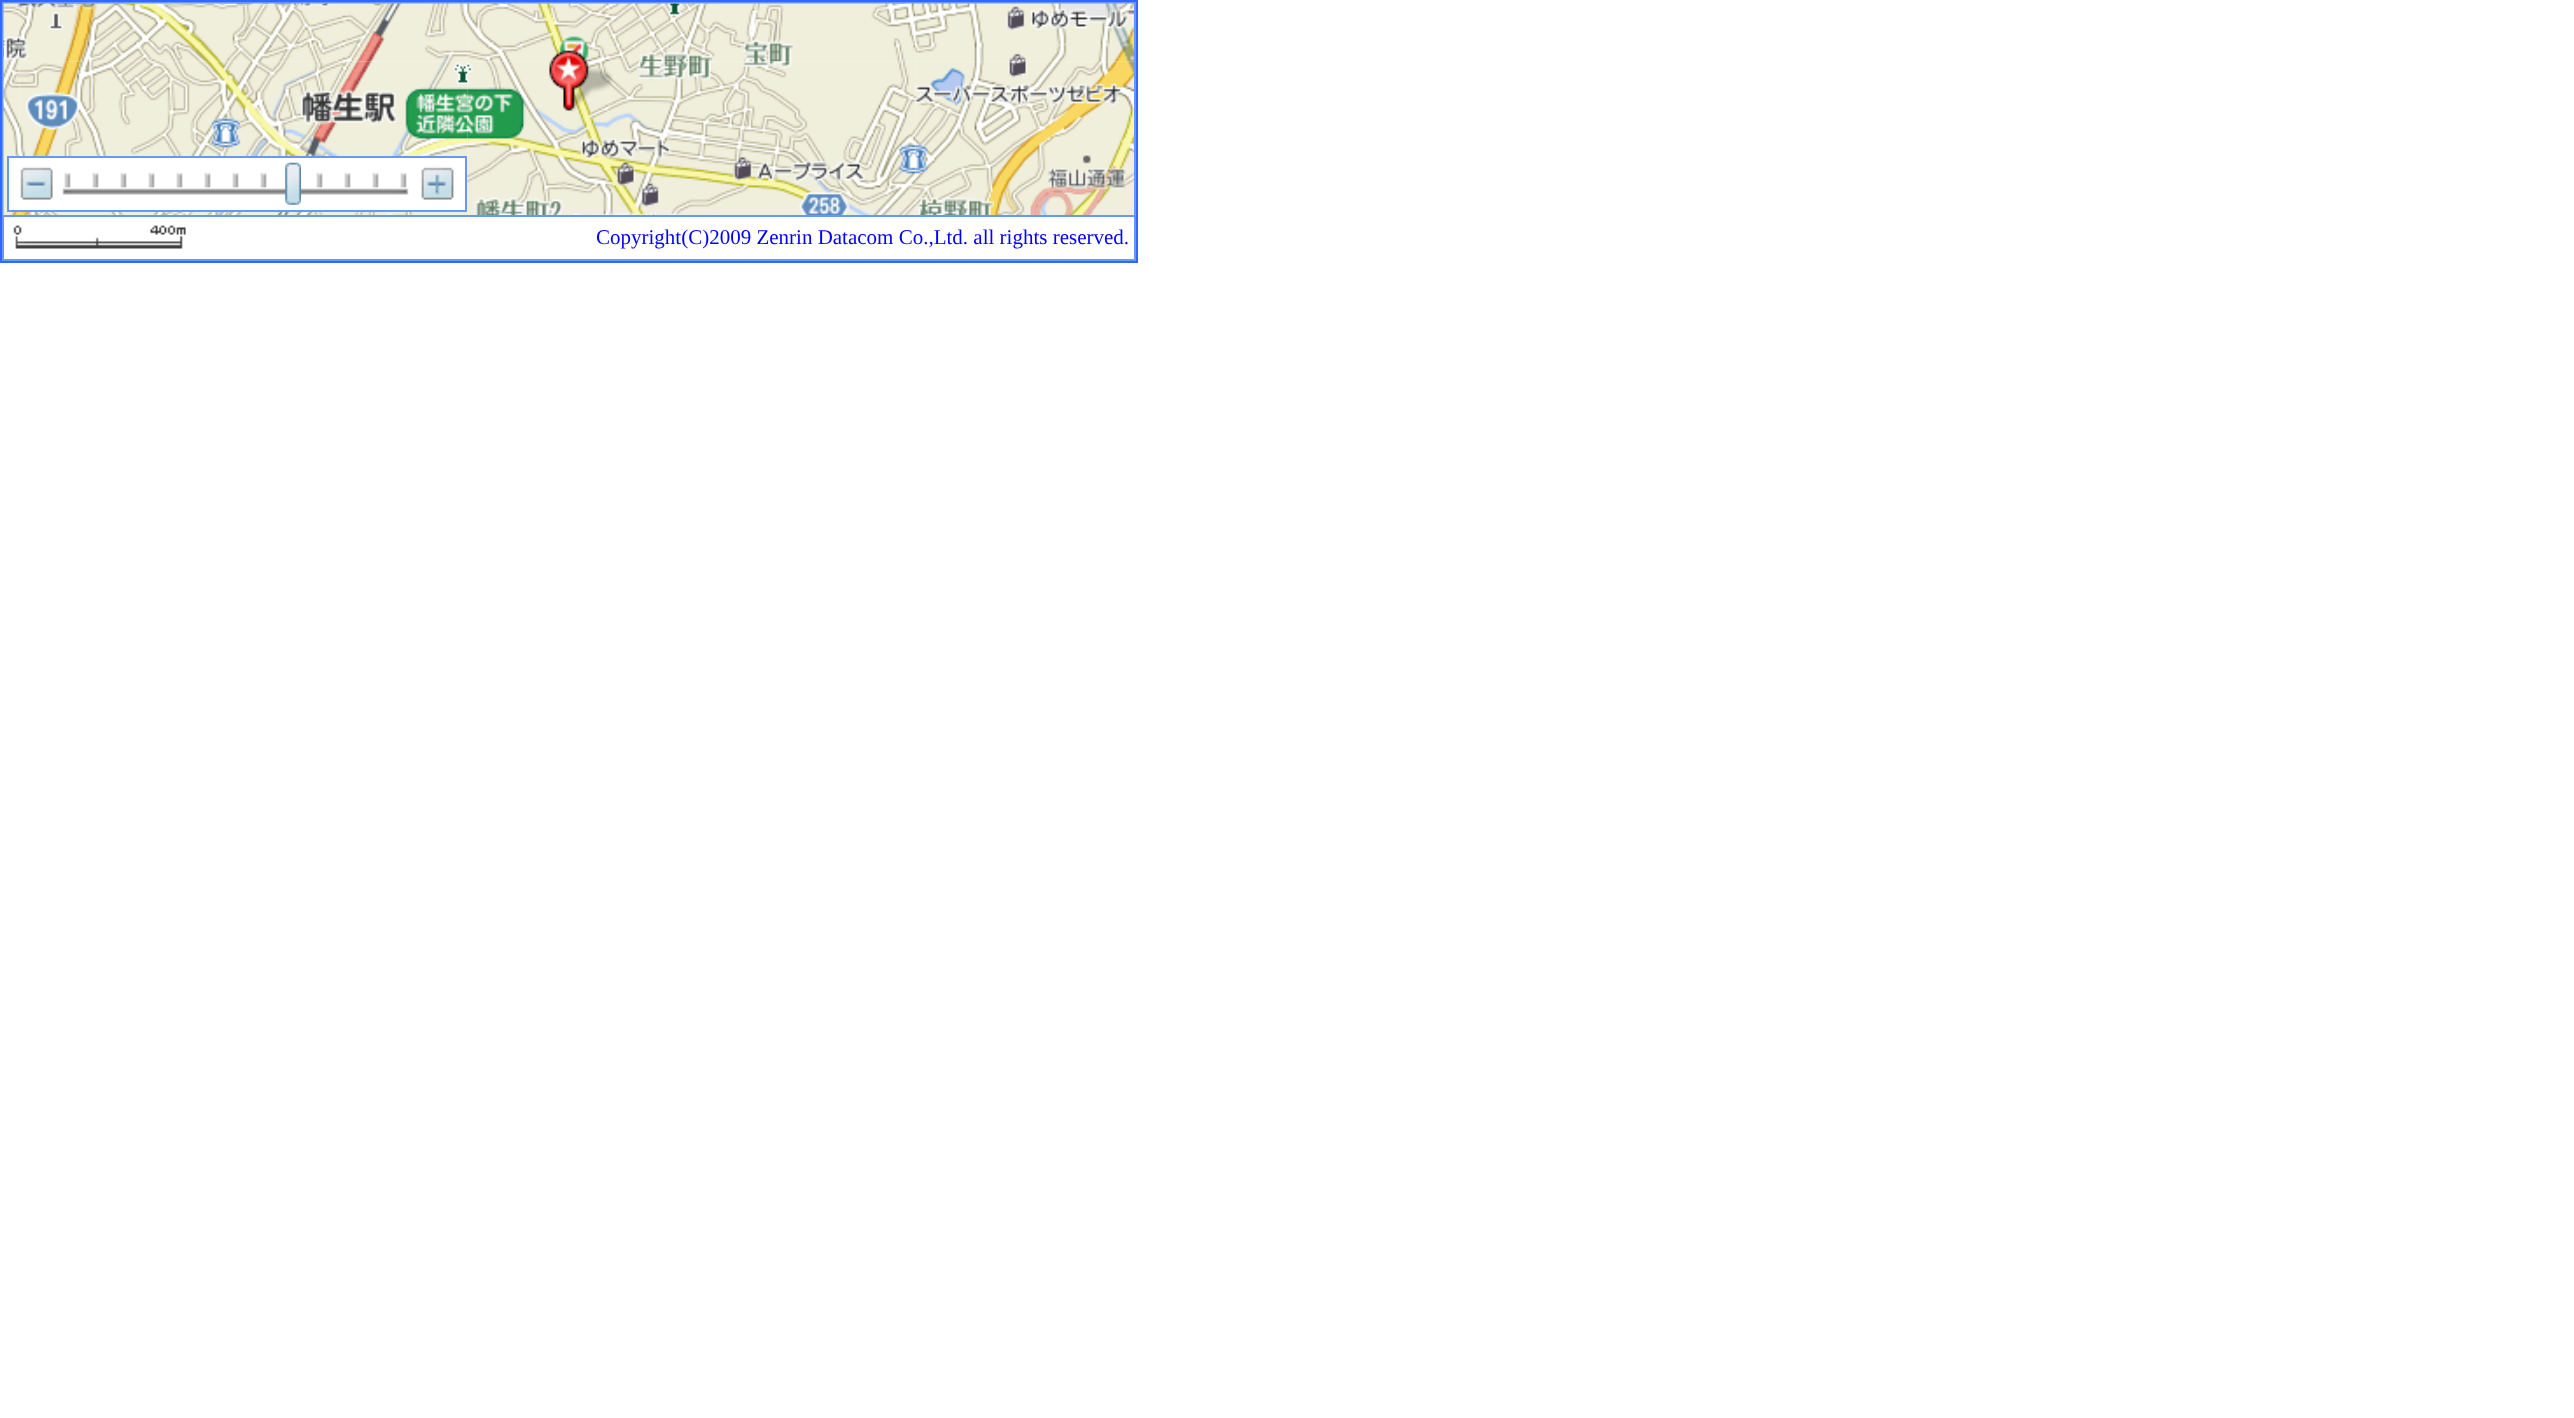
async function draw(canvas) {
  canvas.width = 2574
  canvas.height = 1418
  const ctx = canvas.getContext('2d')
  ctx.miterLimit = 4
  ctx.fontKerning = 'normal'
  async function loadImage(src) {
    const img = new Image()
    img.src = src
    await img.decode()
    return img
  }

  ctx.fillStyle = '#fff'
  ctx.fillRect(0, 0, 2574, 1418)
  ctx.strokeStyle = '#36f'
  ctx.lineWidth = 2
  ctx.strokeRect(1, 1, 1136, 261)
  ctx.strokeStyle = '#69f'
  ctx.strokeRect(3, 3, 1132, 213)
  ctx.drawImage(await loadImage('image7.png'), 915, 61, 219, 154)
  ctx.drawImage(await loadImage('image3.png'), 915, 3, 219, 59)
  ctx.drawImage(await loadImage('image6.png'), 467, 61, 449, 154)
  ctx.drawImage(await loadImage('image2.png'), 467, 3, 449, 59)
  ctx.drawImage(await loadImage('image5.png'), 19, 61, 449, 154)
  ctx.drawImage(await loadImage('image1.png'), 19, 3, 449, 59)
  ctx.drawImage(await loadImage('image4.png'), 3, 61, 17, 154)
  ctx.drawImage(await loadImage('image0.png'), 3, 3, 17, 59)
  ctx.drawImage(await loadImage('image8.png'), 549, 50, 64, 62)
  ctx.beginPath()
  ctx.rect(8, 157, 458, 54)
  ctx.fill()
  ctx.stroke()
  ctx.drawImage(await loadImage('image9.png'), 20, 167, 33, 33)
  ctx.drawImage(await loadImage('image12.png'), 62, 173, 347, 22)
  ctx.drawImage(await loadImage('image10.png'), 285, 162, 16, 43)
  ctx.drawImage(await loadImage('image11.png'), 421, 167, 33, 33)
  ctx.strokeRect(3, 216, 1132, 44)
  ctx.drawImage(await loadImage('image13.png'), 13, 225, 173, 24)
  ctx.font = '21px Liberation Serif'
  ctx.fillStyle = '#00f'
  ctx.fillText('Copyright(C)2009 Zenrin Datacom Co.,Ltd. all rights reserved.', 596, 244)
}

draw(document.querySelector('canvas'))
